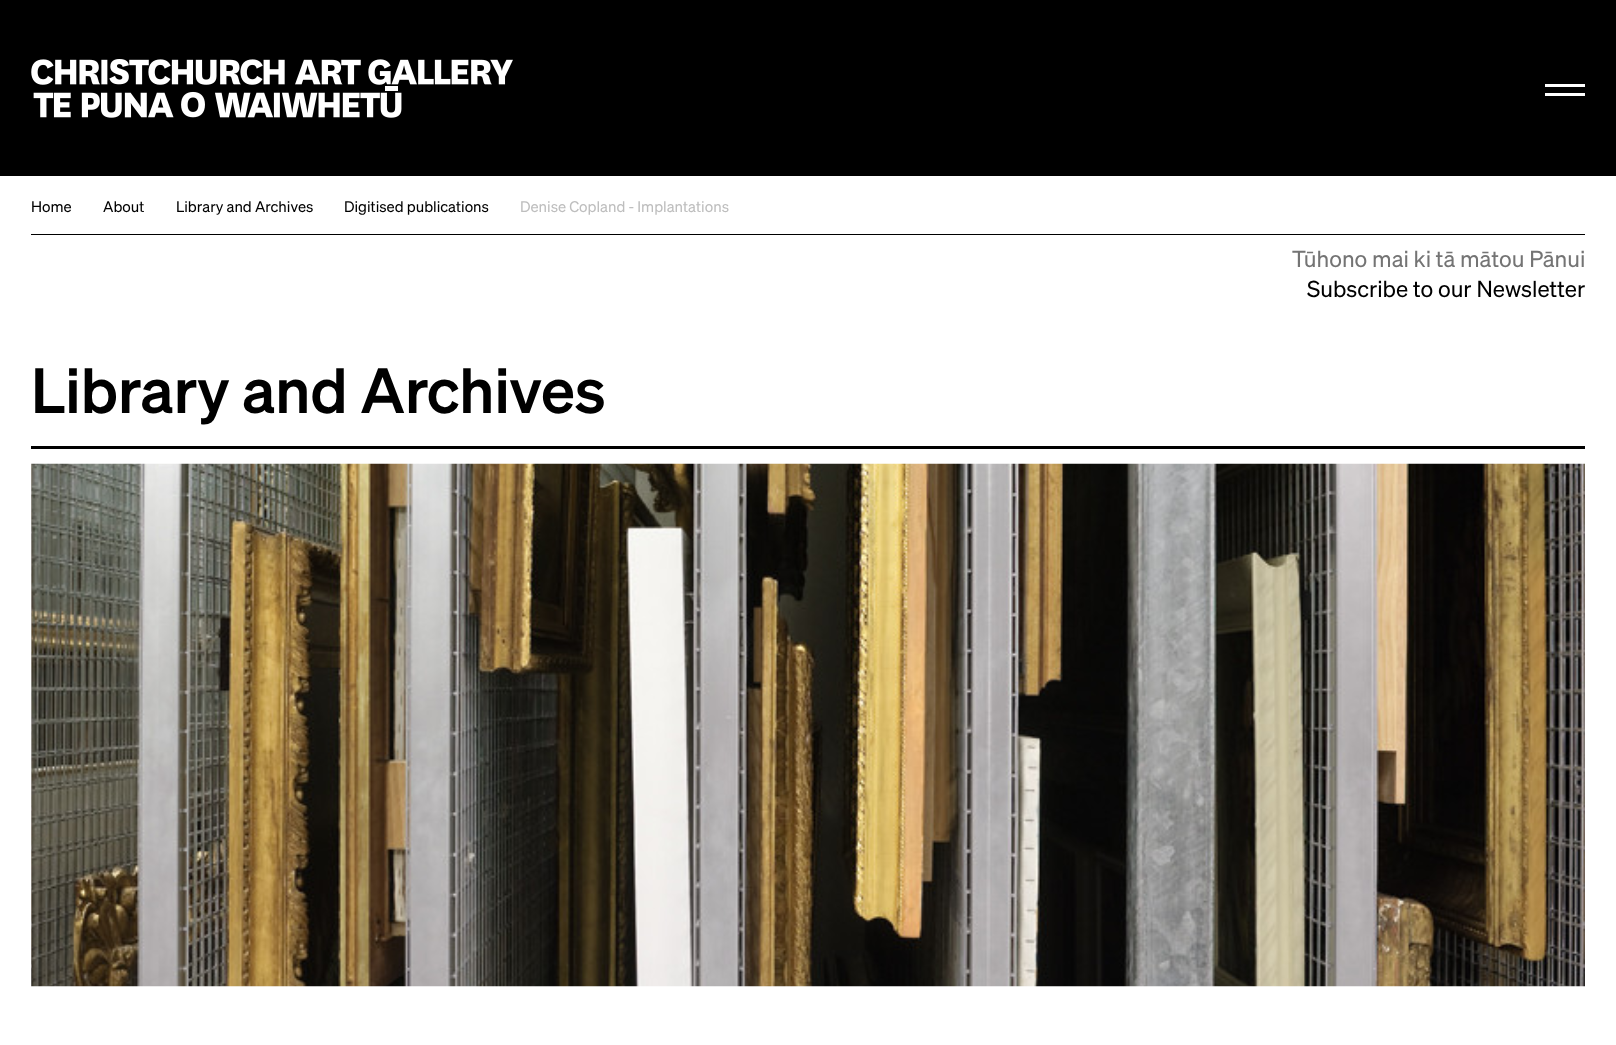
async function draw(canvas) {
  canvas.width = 1616
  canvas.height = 1045
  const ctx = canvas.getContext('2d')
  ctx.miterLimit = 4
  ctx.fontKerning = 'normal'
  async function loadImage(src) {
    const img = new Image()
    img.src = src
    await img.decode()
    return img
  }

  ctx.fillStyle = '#fff'
  ctx.fillRect(0, 0, 1616, 1045)
  ctx.fillStyle = '#000'
  ctx.fillRect(0, 0, 1616, 176)
  ctx.drawImage(await loadImage('image0.png'), 31, 59, 482, 59)
  ctx.fillStyle = '#fff'
  ctx.fillRect(1545, 93, 40, 3)
  ctx.fillRect(1545, 84, 40, 3)
  ctx.fillStyle = '#000'
  ctx.fillRect(31, 234, 1554, 1)
  ctx.font = 'italic 15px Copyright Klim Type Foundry'
  ctx.fillText('Home', 31, 212)
  ctx.fillText('About', 103, 212)
  ctx.fillText('Library and Archives', 176, 212)
  ctx.fillText('Digitised publications', 344, 212)
  ctx.fillStyle = '#bebebe'
  ctx.fillText('Denise Copland - Implantations', 520, 212)
  ctx.font = 'italic 22.5px Copyright Klim Type Foundry'
  ctx.fillStyle = '#747474'
  ctx.fillText('Tūhono mai ki tā mātou Pānui', 1292, 267)
  ctx.fillStyle = '#000'
  ctx.fillText('Subscribe to our Newsletter', 1307, 297)
  ctx.fillRect(31, 446, 1554, 3)
  ctx.font = 'italic 500 62.5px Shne'
  ctx.fillText('Library and Archives', 31, 413)
  ctx.drawImage(await loadImage('image1.png'), 31, 463, 1554, 524)
}

draw(document.querySelector('canvas'))
